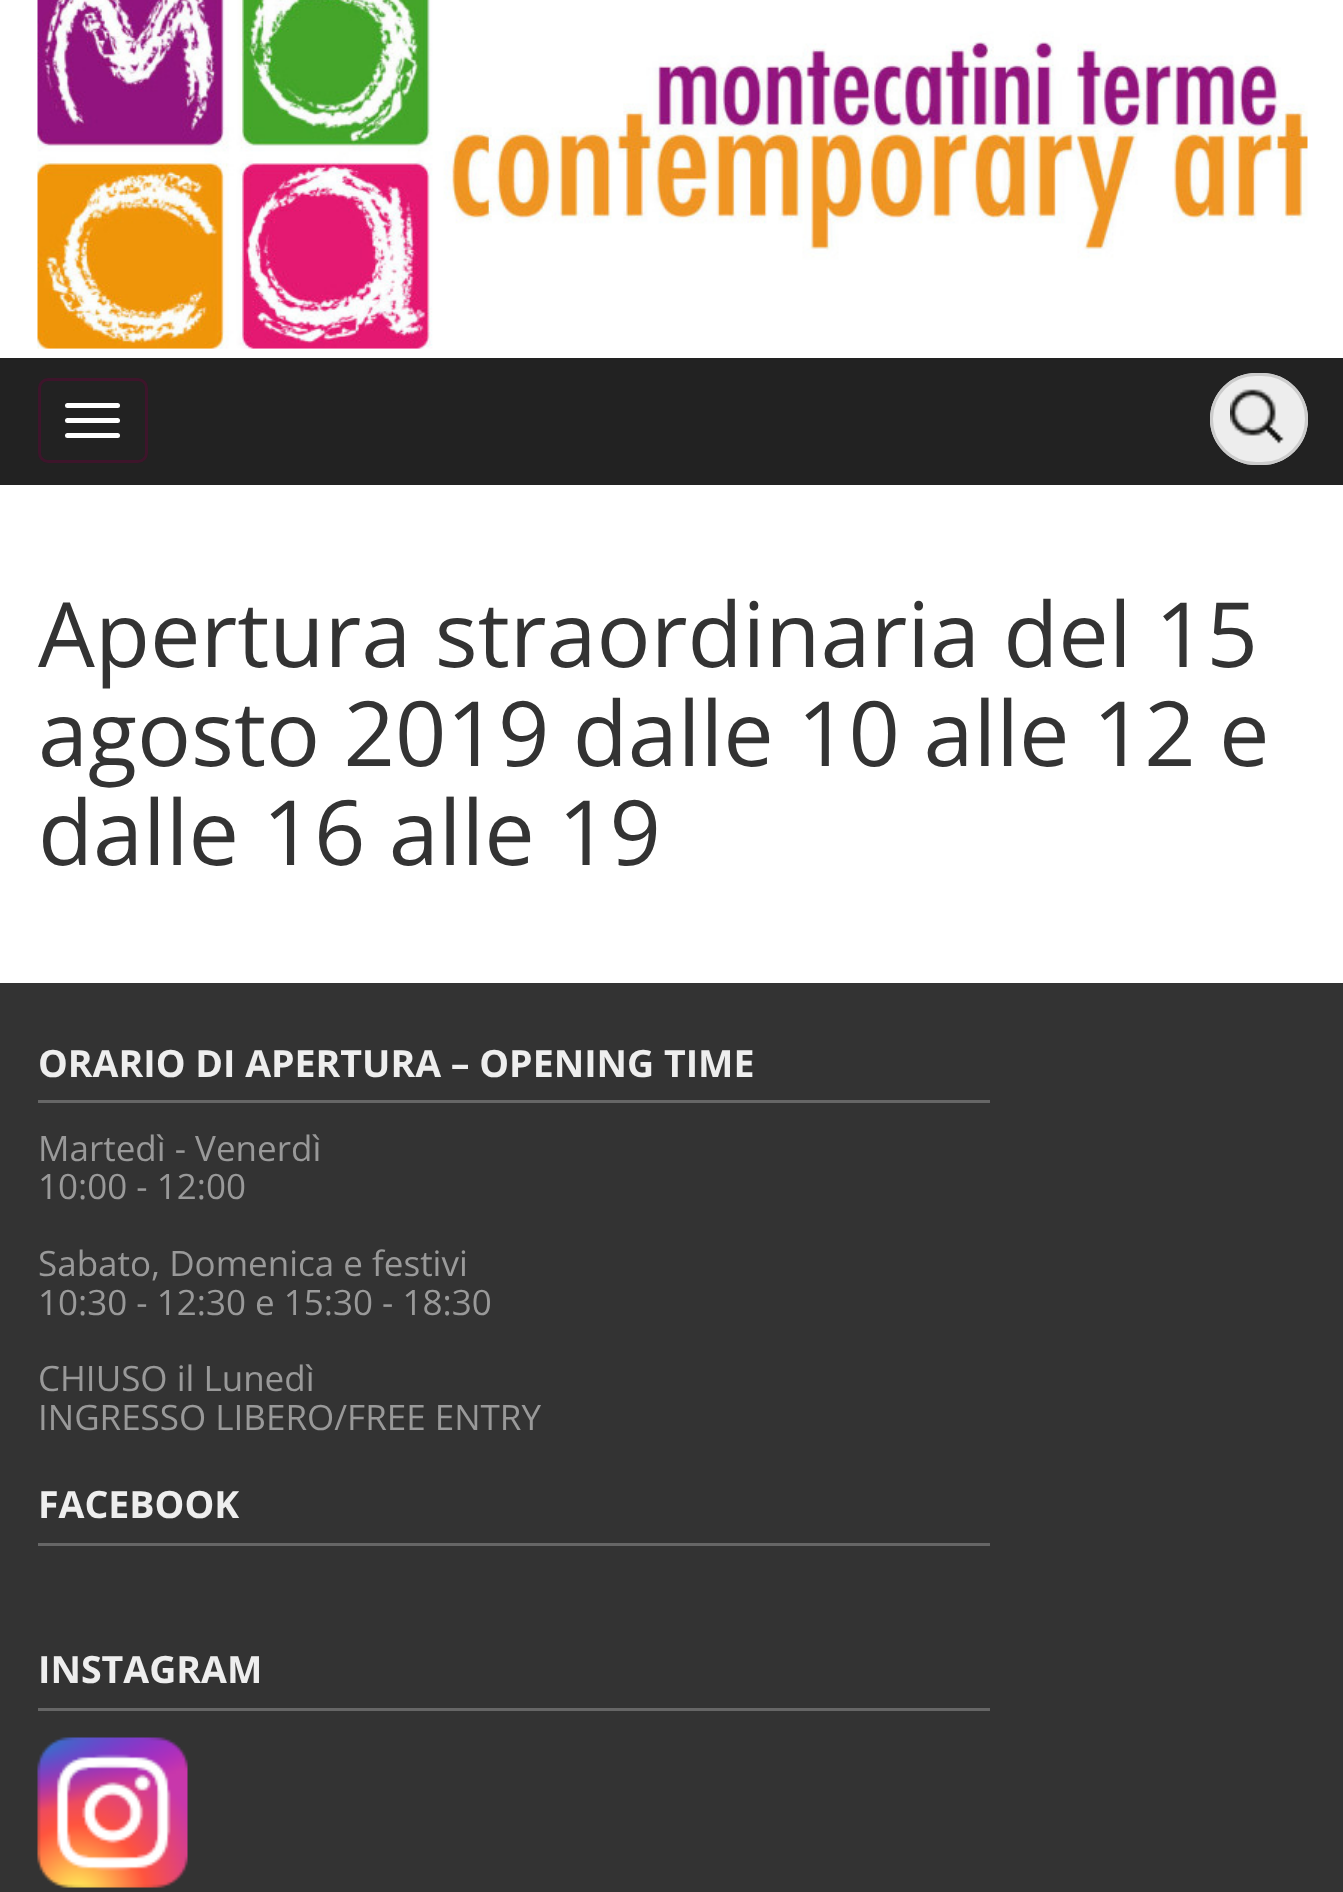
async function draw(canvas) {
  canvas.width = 1343
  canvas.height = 1892
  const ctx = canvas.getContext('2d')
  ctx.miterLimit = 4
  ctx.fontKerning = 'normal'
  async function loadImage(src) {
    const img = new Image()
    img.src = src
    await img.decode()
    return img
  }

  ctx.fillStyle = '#fff'
  ctx.fillRect(0, 0, 1343, 1892)
  ctx.drawImage(await loadImage('image0.png'), 37, 0, 1271, 349)
  ctx.fillStyle = '#222'
  ctx.fillRect(0, 358, 1343, 127)
  ctx.beginPath()
  ctx.roundRect(39.5, 379.5, 107, 82, 8.5)
  ctx.strokeStyle = '#3e152b'
  ctx.lineWidth = 3
  ctx.stroke()
  ctx.fillStyle = '#fff'
  ctx.beginPath()
  ctx.roundRect(65, 403, 55, 5, 2.5)
  ctx.fill()
  ctx.beginPath()
  ctx.roundRect(65, 418, 55, 5, 2.5)
  ctx.fill()
  ctx.beginPath()
  ctx.roundRect(65, 433, 55, 5, 2.5)
  ctx.fill()
  ctx.fillStyle = '#ededed'
  ctx.beginPath()
  ctx.roundRect(1210, 373, 98, 92, 46)
  ctx.fill()
  ctx.drawImage(await loadImage('image1.png'), 1230, 389, 54, 55)
  ctx.beginPath()
  ctx.roundRect(1211.5, 374.5, 95, 89, 44.5)
  ctx.strokeStyle = '#ccc'
  ctx.stroke()
  ctx.font = '90px Open Sans'
  ctx.fillStyle = '#333'
  ctx.fillText('Apertura straordinaria del 15', 38, 667)
  ctx.fillText('agosto 2019 dalle 10 alle 12 e', 38, 766)
  ctx.fillText('dalle 16 alle 19', 38, 865)
  ctx.fillRect(0, 983, 1343, 909)
  ctx.font = 'bold 37.5px Open Sans'
  ctx.fillStyle = '#eee'
  ctx.fillText('ORARIO DI APERTURA – OPENING TIME', 38, 1077)
  ctx.fillStyle = '#666'
  ctx.fillRect(38, 1100, 952, 3)
  ctx.font = '35px Open Sans'
  ctx.fillStyle = '#999'
  ctx.fillText('Martedì - Venerdì', 38, 1161)
  ctx.fillText('10:00 - 12:00', 38, 1199)
  ctx.fillText('Sabato, Domenica e festivi', 38, 1276)
  ctx.fillText('10:30 - 12:30 e 15:30 - 18:30', 38, 1315)
  ctx.fillText('CHIUSO il Lunedì', 38, 1391)
  ctx.fillText('INGRESSO LIBERO/FREE ENTRY', 38, 1430)
  ctx.font = 'bold 37.5px Open Sans'
  ctx.fillStyle = '#eee'
  ctx.fillText('FACEBOOK', 38, 1518)
  ctx.fillStyle = '#666'
  ctx.fillRect(38, 1543, 952, 3)
  ctx.fillStyle = '#eee'
  ctx.fillText('INSTAGRAM', 38, 1683)
  ctx.fillStyle = '#666'
  ctx.fillRect(38, 1708, 952, 3)
  ctx.drawImage(await loadImage('image2.png'), 37, 1737, 151, 151)
}

draw(document.querySelector('canvas'))
